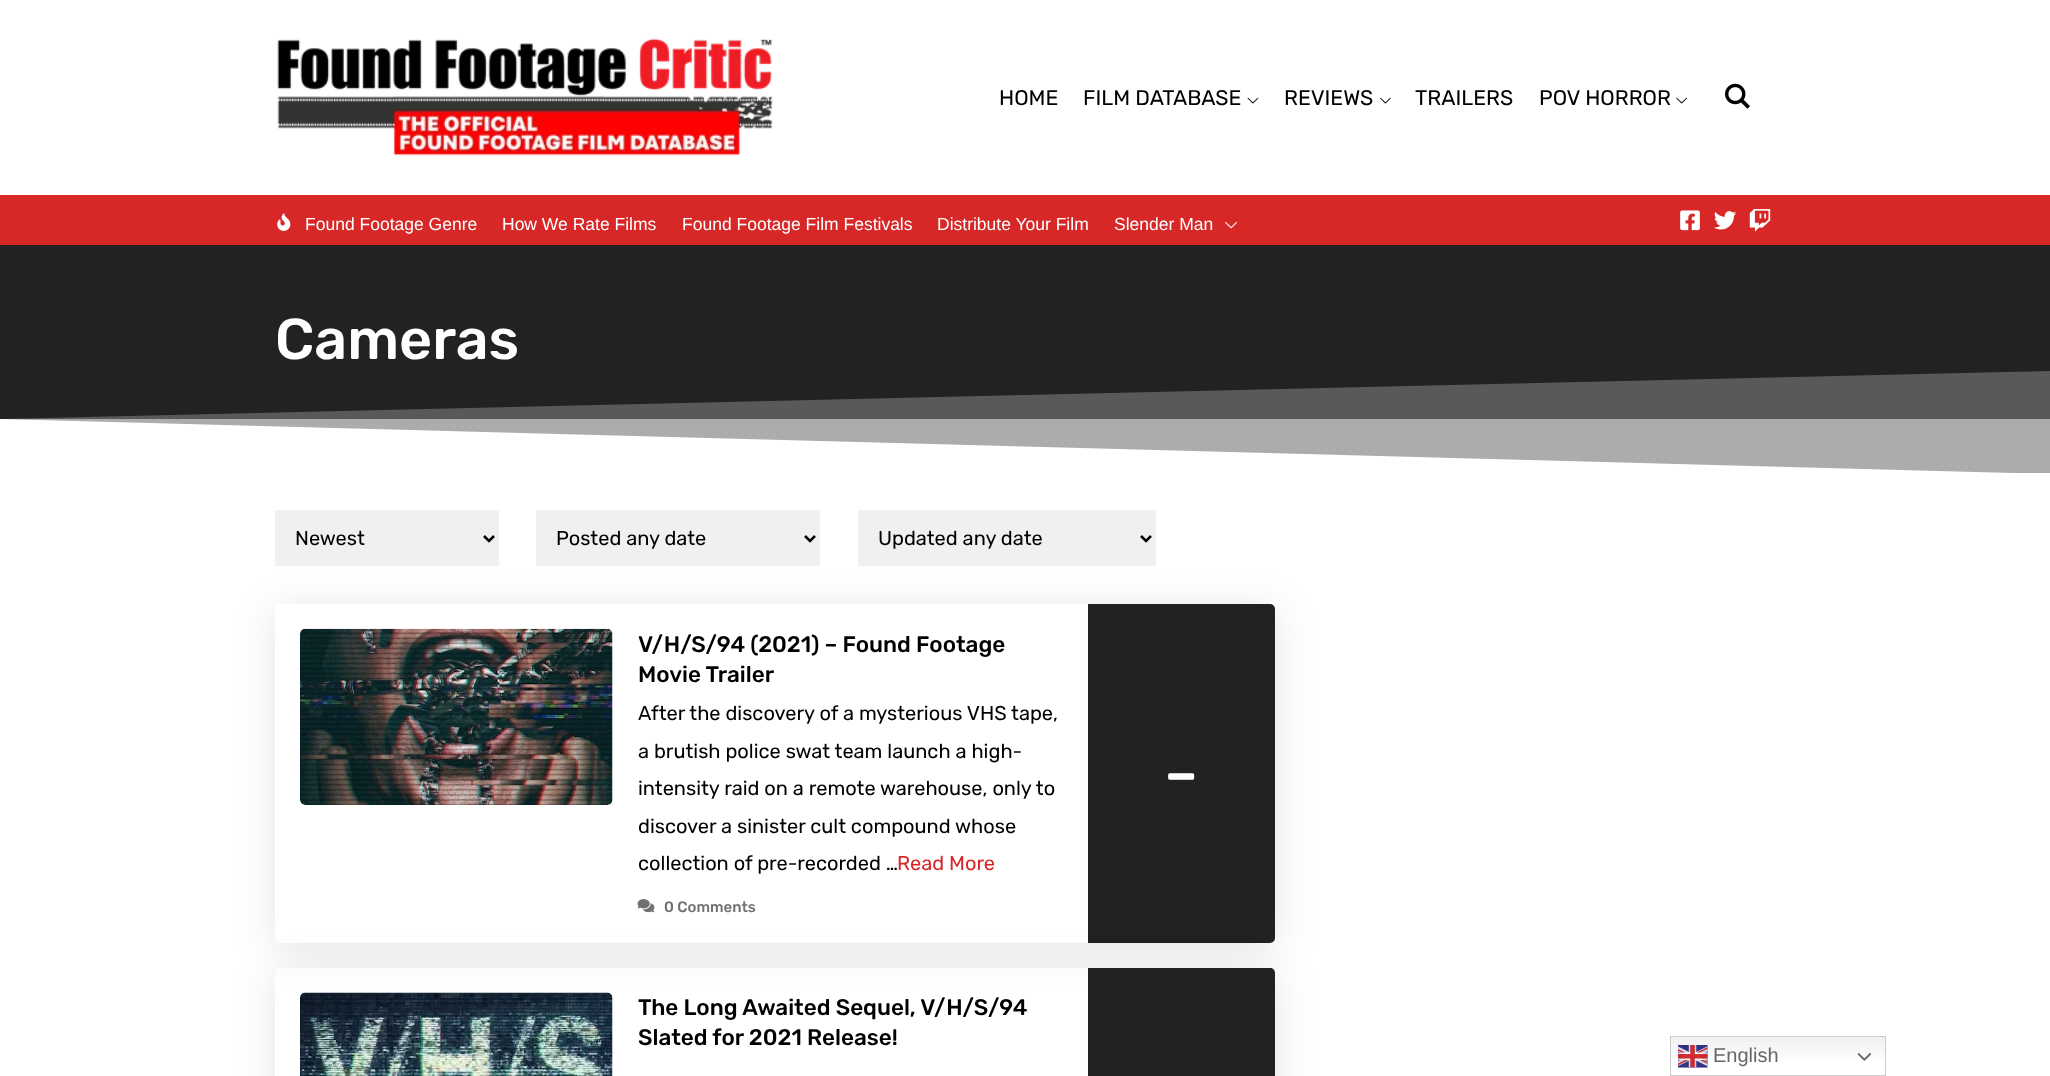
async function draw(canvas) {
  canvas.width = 2050
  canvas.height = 1076
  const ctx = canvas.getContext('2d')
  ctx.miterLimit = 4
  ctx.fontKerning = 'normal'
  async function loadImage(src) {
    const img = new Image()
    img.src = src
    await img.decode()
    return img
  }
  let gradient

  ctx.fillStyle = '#fff'
  ctx.fillRect(0, 0, 2050, 1076)
  ctx.drawImage(await loadImage('image0.png'), 277, 38, 496, 118)
  ctx.font = '21.25px Rubik'
  ctx.fillStyle = '#000'
  ctx.fillText('HOME', 999, 105)
  ctx.fillText('FILM DATABASE', 1083, 105)
  ctx.drawImage(await loadImage('image1.png'), 1247, 97, 12, 7)
  ctx.fillText('REVIEWS', 1284, 105)
  ctx.drawImage(await loadImage('image2.png'), 1380, 97, 11, 7)
  ctx.fillText('TRAILERS', 1415, 105)
  ctx.fillText('POV HORROR', 1539, 105)
  ctx.drawImage(await loadImage('image3.png'), 1676, 97, 11, 7)
  ctx.drawImage(await loadImage('image4.png'), 1725, 83, 25, 26)
  ctx.fillStyle = '#d72727'
  ctx.fillRect(0, 195, 2050, 50)
  ctx.drawImage(await loadImage('image5.png'), 277, 213, 14, 18)
  ctx.font = '17.5px Liberation Sans'
  ctx.fillStyle = '#fff'
  ctx.fillText('Found Footage Genre', 305, 230)
  ctx.fillText('How We Rate Films', 502, 230)
  ctx.fillText('Found Footage Film Festivals', 682, 230)
  ctx.fillText('Distribute Your Film', 937, 230)
  ctx.fillText('Slender Man', 1114, 230)
  ctx.drawImage(await loadImage('image6.png'), 1225, 221, 13, 8)
  ctx.drawImage(await loadImage('image7.png'), 1680, 210, 20, 21)
  ctx.drawImage(await loadImage('image8.png'), 1714, 211, 23, 19)
  ctx.drawImage(await loadImage('image9.png'), 1749, 209, 22, 23)
  ctx.fillStyle = '#222'
  ctx.fillRect(0, 245, 2050, 174)
  ctx.fillStyle = '#919191'
  ctx.fillRect(1, 419, 2049, 54)
  ctx.font = '500 57.5px Rubik'
  ctx.fillStyle = '#fff'
  ctx.fillText('Cameras', 275, 359)
  ctx.beginPath()
  ctx.moveTo(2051, 474)
  ctx.lineTo(-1, 474)
  ctx.lineTo(-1, 419)
  ctx.closePath()
  ctx.fill()
  ctx.fillStyle = '#ffffff40'
  ctx.beginPath()
  ctx.moveTo(-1, 474)
  ctx.lineTo(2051, 474)
  ctx.lineTo(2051, 371)
  ctx.lineTo(-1, 419)
  ctx.closePath()
  ctx.fill()
  ctx.fillStyle = '#f0f0f0'
  ctx.fillRect(275, 510, 224, 56)
  ctx.beginPath()
  ctx.moveTo(484, 536)
  ctx.lineTo(489, 541)
  ctx.lineTo(494, 536)
  ctx.strokeStyle = '#000'
  ctx.lineWidth = 2.5
  ctx.stroke()
  ctx.font = '20px Rubik'
  ctx.fillStyle = '#000'
  ctx.fillText('Newest', 295, 545)
  ctx.fillStyle = '#f0f0f0'
  ctx.fillRect(536, 510, 284, 56)
  ctx.beginPath()
  ctx.moveTo(805, 536)
  ctx.lineTo(810, 541)
  ctx.lineTo(815, 536)
  ctx.stroke()
  ctx.fillStyle = '#000'
  ctx.fillText('Posted any date', 556, 545)
  ctx.fillStyle = '#f0f0f0'
  ctx.fillRect(858, 510, 298, 56)
  ctx.beginPath()
  ctx.moveTo(1141, 536)
  ctx.lineTo(1146, 541)
  ctx.lineTo(1151, 536)
  ctx.stroke()
  ctx.fillStyle = '#000'
  ctx.fillText('Updated any date', 878, 545)
  ctx.save()
  ctx.beginPath()
  ctx.moveTo(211, 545)
  ctx.lineTo(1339, 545)
  ctx.lineTo(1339, 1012)
  ctx.lineTo(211, 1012)
  ctx.closePath()
  ctx.moveTo(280, 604)
  ctx.lineTo(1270, 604)
  ctx.bezierCurveTo(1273, 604, 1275, 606, 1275, 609)
  ctx.lineTo(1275, 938)
  ctx.bezierCurveTo(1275, 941, 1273, 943, 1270, 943)
  ctx.lineTo(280, 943)
  ctx.bezierCurveTo(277, 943, 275, 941, 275, 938)
  ctx.lineTo(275, 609)
  ctx.bezierCurveTo(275, 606, 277, 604, 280, 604)
  ctx.closePath()
  ctx.clip('evenodd')
  ctx.fillStyle = '#0000001a'
  ctx.filter = 'blur(21px)'
  ctx.beginPath()
  ctx.roundRect(275, 609, 1000, 339, 5)
  ctx.fill()
  ctx.filter = 'none'
  ctx.restore()
  ctx.drawImage(await loadImage('image10.png'), 300, 628, 313, 177)
  ctx.font = '500 22.5px Rubik'
  ctx.fillText('V/H/S/94 (2021) – Found Footage', 638, 652)
  ctx.fillText('Movie Trailer', 638, 682)
  ctx.font = '20px Rubik'
  ctx.fillText('After the discovery of a mysterious VHS tape,', 638, 720)
  ctx.fillText('a brutish police swat team launch a high-', 638, 758)
  ctx.fillText('intensity raid on a remote warehouse, only to', 638, 795)
  ctx.fillText('discover a sinister cult compound whose', 638, 833)
  ctx.fillText('collection of pre-recorded …', 638, 870)
  ctx.fillStyle = '#d72727'
  ctx.fillText('Read More', 897, 870)
  ctx.fillStyle = '#222'
  ctx.beginPath()
  ctx.roundRect(1088, 604, 187, 339, [0, 5, 5, 0])
  ctx.fill()
  ctx.save()
  ctx.beginPath()
  ctx.moveTo(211, 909)
  ctx.lineTo(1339, 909)
  ctx.lineTo(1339, 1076)
  ctx.lineTo(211, 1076)
  ctx.closePath()
  ctx.moveTo(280, 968)
  ctx.lineTo(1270, 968)
  ctx.bezierCurveTo(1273, 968, 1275, 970, 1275, 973)
  ctx.lineTo(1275, 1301)
  ctx.bezierCurveTo(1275, 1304, 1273, 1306, 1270, 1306)
  ctx.lineTo(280, 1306)
  ctx.bezierCurveTo(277, 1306, 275, 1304, 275, 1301)
  ctx.lineTo(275, 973)
  ctx.bezierCurveTo(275, 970, 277, 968, 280, 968)
  ctx.closePath()
  ctx.clip('evenodd')
  ctx.fillStyle = '#0000001a'
  ctx.filter = 'blur(21px)'
  ctx.beginPath()
  ctx.roundRect(275, 973, 1000, 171, 5)
  ctx.fill()
  ctx.filter = 'none'
  ctx.restore()
  ctx.drawImage(await loadImage('image11.png'), 637, 899, 18, 14)
  ctx.font = '500 15px Rubik'
  ctx.fillStyle = '#717171'
  ctx.fillText('0 Comments', 664, 912)
  ctx.font = '75px Rubik'
  ctx.fillStyle = '#fff'
  ctx.fillText('-', 1163, 799)
  ctx.drawImage(await loadImage('image12.png'), 300, 992, 313, 84)
  ctx.font = '500 22.5px Rubik'
  ctx.fillStyle = '#000'
  ctx.fillText('The Long Awaited Sequel, V/H/S/94', 638, 1015)
  ctx.fillText('Slated for 2021 Release!', 638, 1045)
  ctx.fillStyle = '#222'
  ctx.beginPath()
  ctx.moveTo(1088, 968)
  ctx.lineTo(1270, 968)
  ctx.bezierCurveTo(1273, 968, 1275, 970, 1275, 973)
  ctx.lineTo(1275, 1076)
  ctx.bezierCurveTo(1275, 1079, 1273, 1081, 1270, 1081)
  ctx.lineTo(1088, 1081)
  ctx.closePath()
  ctx.fill()
  gradient = ctx.createLinearGradient(1778, 1036, 1778, 1076)
  gradient.addColorStop(0, '#efefef')
  gradient.addColorStop(0.7, '#fff')
  ctx.fillStyle = gradient
  ctx.fillRect(1671, 1037, 214, 23)
  ctx.strokeStyle = '#ccc'
  ctx.lineWidth = 1
  ctx.strokeRect(1670.5, 1036.5, 215, 39)
  ctx.drawImage(await loadImage('image13.png'), 1678, 1045, 30, 23)
  ctx.font = '20px Liberation Sans'
  ctx.fillStyle = '#666'
  ctx.fillText('English', 1713, 1062)
  ctx.drawImage(await loadImage('image14.png'), 1858, 1052, 13, 9)
}

draw(document.querySelector('canvas'))
